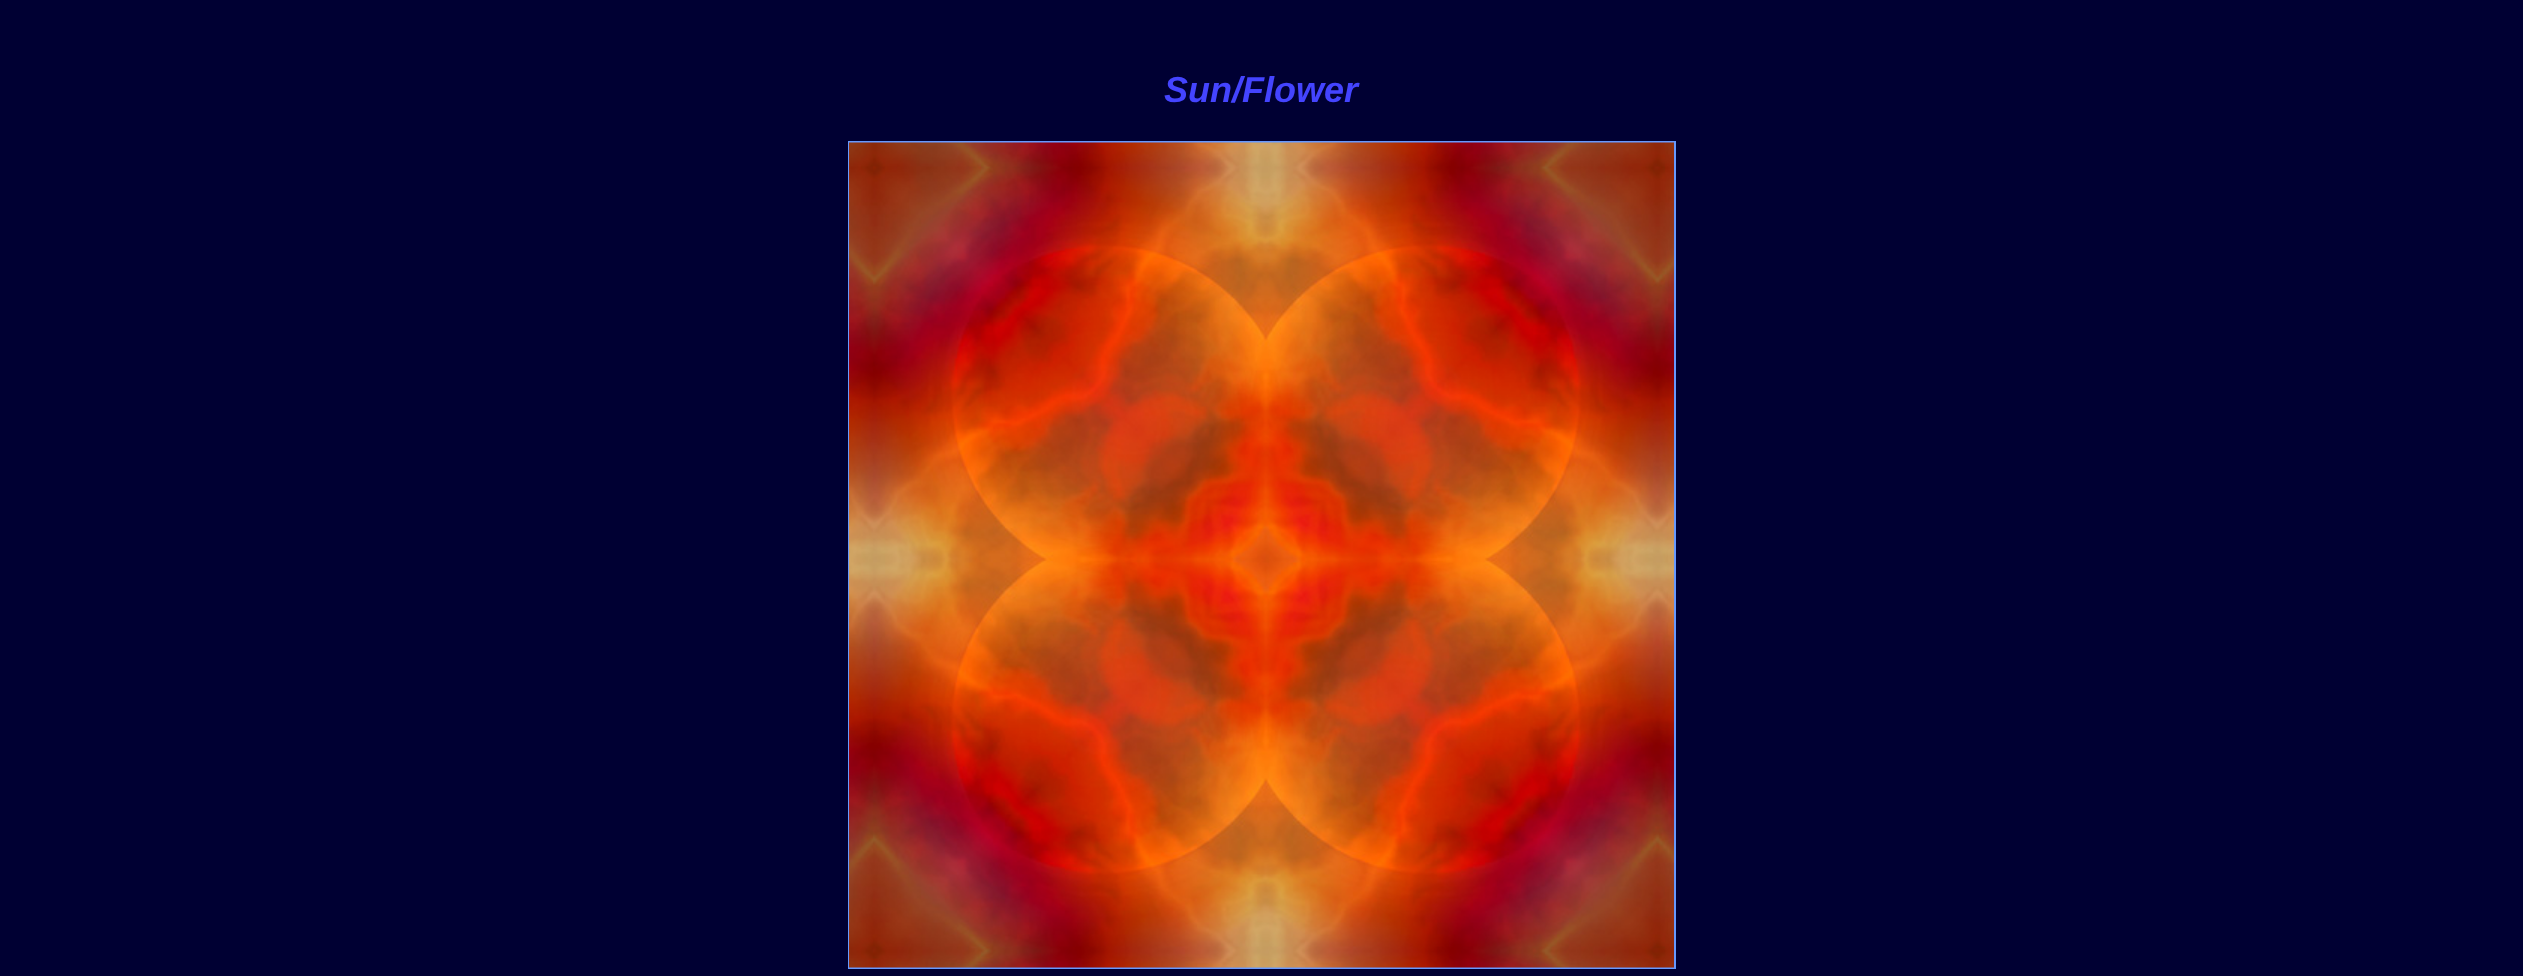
async function draw(canvas) {
  canvas.width = 2523
  canvas.height = 976
  const ctx = canvas.getContext('2d')
  ctx.miterLimit = 4
  ctx.fontKerning = 'normal'
  async function loadImage(src) {
    const img = new Image()
    img.src = src
    await img.decode()
    return img
  }

  ctx.fillStyle = '#003'
  ctx.fillRect(0, 0, 2523, 976)
  ctx.font = 'italic bold 36px Liberation Sans'
  ctx.fillStyle = '#44f'
  ctx.fillText('Sun/Flower', 1164, 102)
  ctx.strokeStyle = '#69f'
  ctx.lineWidth = 2
  ctx.strokeRect(849, 142, 826, 826)
  ctx.drawImage(await loadImage('image0.png'), 849, 142, 825, 826)
}

draw(document.querySelector('canvas'))
